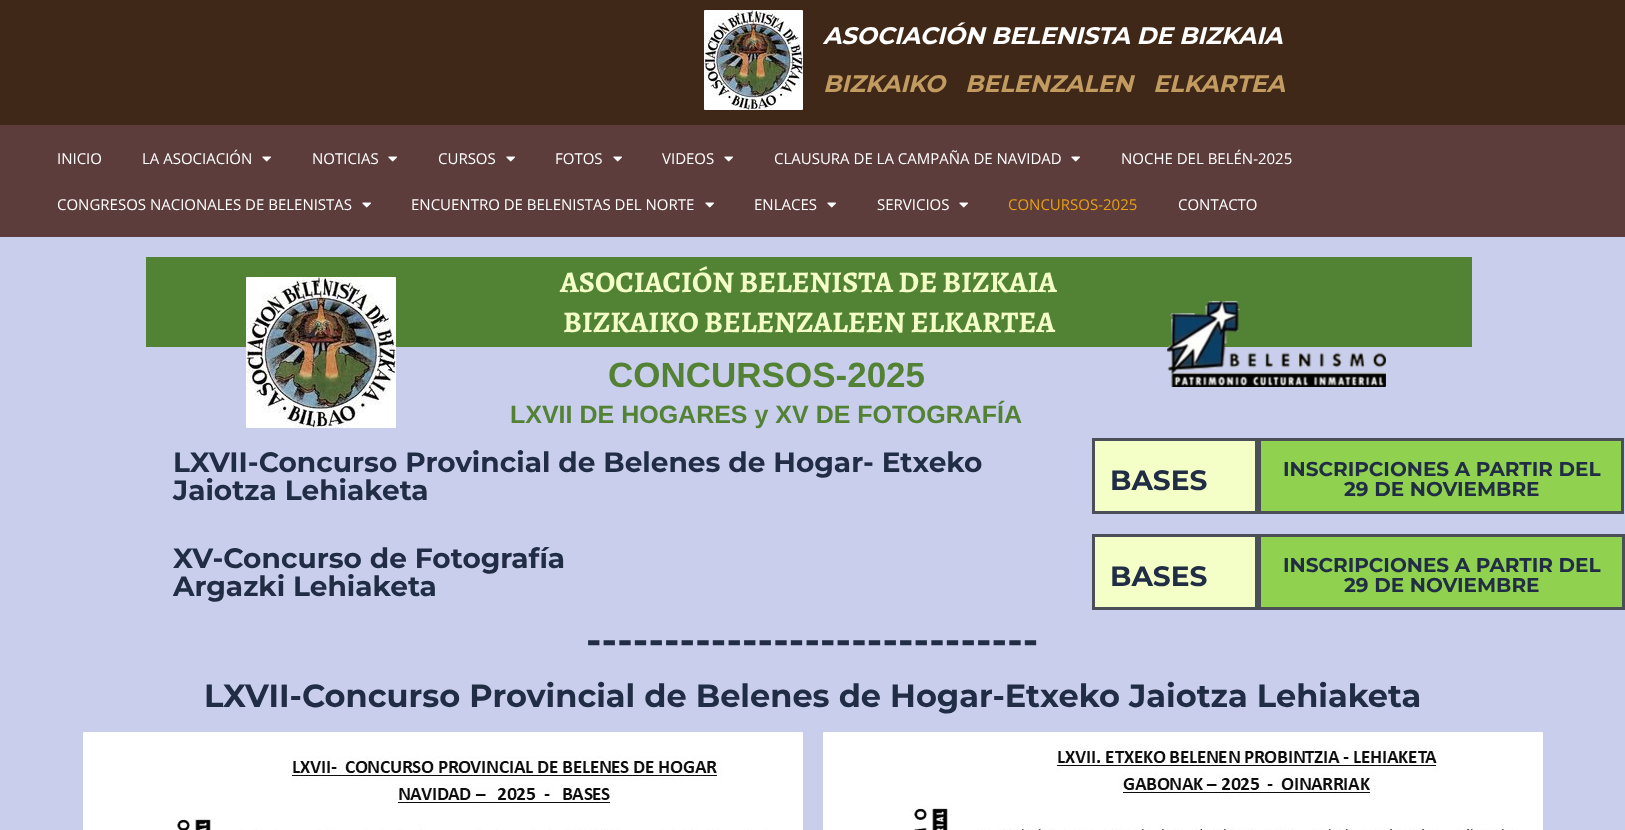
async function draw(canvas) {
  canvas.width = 1625
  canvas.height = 830
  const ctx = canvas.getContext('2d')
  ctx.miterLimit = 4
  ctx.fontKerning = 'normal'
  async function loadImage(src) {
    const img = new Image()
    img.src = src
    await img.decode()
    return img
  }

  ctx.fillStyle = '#3f2817'
  ctx.fillRect(0, 0, 1625, 830)
  ctx.drawImage(await loadImage('image0.png'), 704, 10, 99, 100)
  ctx.letterSpacing = '-0.1px'
  ctx.font = 'italic 100 24px Montserrat'
  ctx.fillStyle = '#fff'
  ctx.fillText('ASOCIACIÓN BELENISTA DE BIZKAIA', 823, 44)
  ctx.fillStyle = '#c29b61'
  ctx.fillText('BIZKAIKO   BELENZALEN   ELKARTEA', 823, 92)
  ctx.fillStyle = '#5d3c3c'
  ctx.fillRect(0, 125, 1625, 112)
  ctx.letterSpacing = '0px'
  ctx.font = '15px Open Sans'
  ctx.fillStyle = '#fff'
  ctx.fillText('INICIO', 57, 164)
  ctx.fillText('LA ASOCIACIÓN', 142, 164)
  ctx.drawImage(await loadImage('image1.png'), 262, 156, 9, 6)
  ctx.fillText('NOTICIAS', 312, 164)
  ctx.drawImage(await loadImage('image1.png'), 388, 156, 9, 6)
  ctx.fillText('CURSOS', 438, 164)
  ctx.drawImage(await loadImage('image1.png'), 506, 156, 9, 6)
  ctx.fillText('FOTOS', 555, 164)
  ctx.drawImage(await loadImage('image1.png'), 613, 156, 9, 6)
  ctx.fillText('VIDEOS', 662, 164)
  ctx.drawImage(await loadImage('image1.png'), 724, 156, 9, 6)
  ctx.fillText('CLAUSURA DE LA CAMPAÑA DE NAVIDAD', 774, 164)
  ctx.drawImage(await loadImage('image1.png'), 1071, 156, 9, 6)
  ctx.fillText('NOCHE DEL BELÉN-2025', 1121, 164)
  ctx.fillText('CONGRESOS NACIONALES DE BELENISTAS', 57, 210)
  ctx.drawImage(await loadImage('image1.png'), 362, 202, 9, 6)
  ctx.fillText('ENCUENTRO DE BELENISTAS DEL NORTE', 411, 210)
  ctx.drawImage(await loadImage('image1.png'), 705, 202, 9, 6)
  ctx.fillText('ENLACES', 754, 210)
  ctx.drawImage(await loadImage('image1.png'), 827, 202, 9, 6)
  ctx.fillText('SERVICIOS', 877, 210)
  ctx.drawImage(await loadImage('image1.png'), 959, 202, 9, 6)
  ctx.fillStyle = '#e6a015'
  ctx.fillText('CONCURSOS-2025', 1008, 210)
  ctx.fillStyle = '#fff'
  ctx.fillText('CONTACTO', 1178, 210)
  ctx.fillStyle = '#c8ceec'
  ctx.fillRect(0, 237, 1625, 297)
  ctx.fillStyle = '#528334'
  ctx.fillRect(146, 257, 1326, 90)
  ctx.font = 'bold 30px Alegreya SC'
  ctx.fillStyle = '#f3ffc7'
  ctx.fillText('ASOCIACIÓN BELENISTA DE BIZKAIA', 560, 292)
  ctx.fillText('BIZKAIKO BELENZALEEN ELKARTEA', 563, 332)
  ctx.drawImage(await loadImage('image2.png'), 246, 277, 150, 151)
  ctx.drawImage(await loadImage('image3.png'), 1167, 300, 219, 87)
  ctx.font = 'bold 35px Liberation Sans'
  ctx.fillStyle = '#538234'
  ctx.fillText('CONCURSOS-2025', 608, 387)
  ctx.font = 'bold 25px Liberation Sans'
  ctx.fillText('LXVII DE HOGARES y XV DE FOTOGRAFÍA', 510, 423)
  ctx.font = '100 28px Montserrat'
  ctx.fillStyle = '#212d45'
  ctx.fillText('LXVII-Concurso Provincial de Belenes de Hogar- Etxeko', 173, 472)
  ctx.fillText('Jaiotza Lehiaketa', 173, 500)
  ctx.fillStyle = '#f3ffc7'
  ctx.beginPath()
  ctx.rect(1093.5, 439.5, 163, 73)
  ctx.fill()
  ctx.strokeStyle = '#4b4f58'
  ctx.lineWidth = 3
  ctx.stroke()
  ctx.fillStyle = '#212d45'
  ctx.fillText('BASES', 1110, 490)
  ctx.fillStyle = '#90d150'
  ctx.beginPath()
  ctx.rect(1259.5, 439.5, 363, 73)
  ctx.fill()
  ctx.stroke()
  ctx.font = '100 20px Montserrat'
  ctx.fillStyle = '#212d45'
  ctx.fillText('INSCRIPCIONES A PARTIR DEL', 1283, 476)
  ctx.fillText('29 DE NOVIEMBRE', 1344, 496)
  ctx.fillStyle = '#c8ceec'
  ctx.fillRect(0, 534, 1092, 76)
  ctx.font = '100 28px Montserrat'
  ctx.fillStyle = '#212d45'
  ctx.fillText('XV-Concurso de Fotografía', 173, 568)
  ctx.fillText('Argazki Lehiaketa', 173, 596)
  ctx.fillStyle = '#f3ffc7'
  ctx.beginPath()
  ctx.rect(1093.5, 535.5, 163, 73)
  ctx.fill()
  ctx.stroke()
  ctx.fillStyle = '#212d45'
  ctx.fillText('BASES', 1110, 586)
  ctx.fillStyle = '#90d150'
  ctx.beginPath()
  ctx.rect(1259.5, 535.5, 364, 73)
  ctx.fill()
  ctx.stroke()
  ctx.font = '100 20px Montserrat'
  ctx.fillStyle = '#212d45'
  ctx.fillText('INSCRIPCIONES A PARTIR DEL', 1283, 572)
  ctx.fillText('29 DE NOVIEMBRE', 1344, 592)
  ctx.fillStyle = '#c8ceec'
  ctx.fillRect(0, 610, 1625, 220)
  ctx.font = '100 40px Montserrat'
  ctx.fillStyle = '#212d45'
  ctx.fillText('-----------------------------', 586, 654)
  ctx.font = '100 32px Montserrat'
  ctx.fillText('LXVII-Concurso Provincial de Belenes de Hogar-Etxeko Jaiotza Lehiaketa', 204, 707)
  ctx.drawImage(await loadImage('image4.png'), 83, 732, 720, 98)
  ctx.drawImage(await loadImage('image5.png'), 823, 732, 720, 98)
}

draw(document.querySelector('canvas'))
